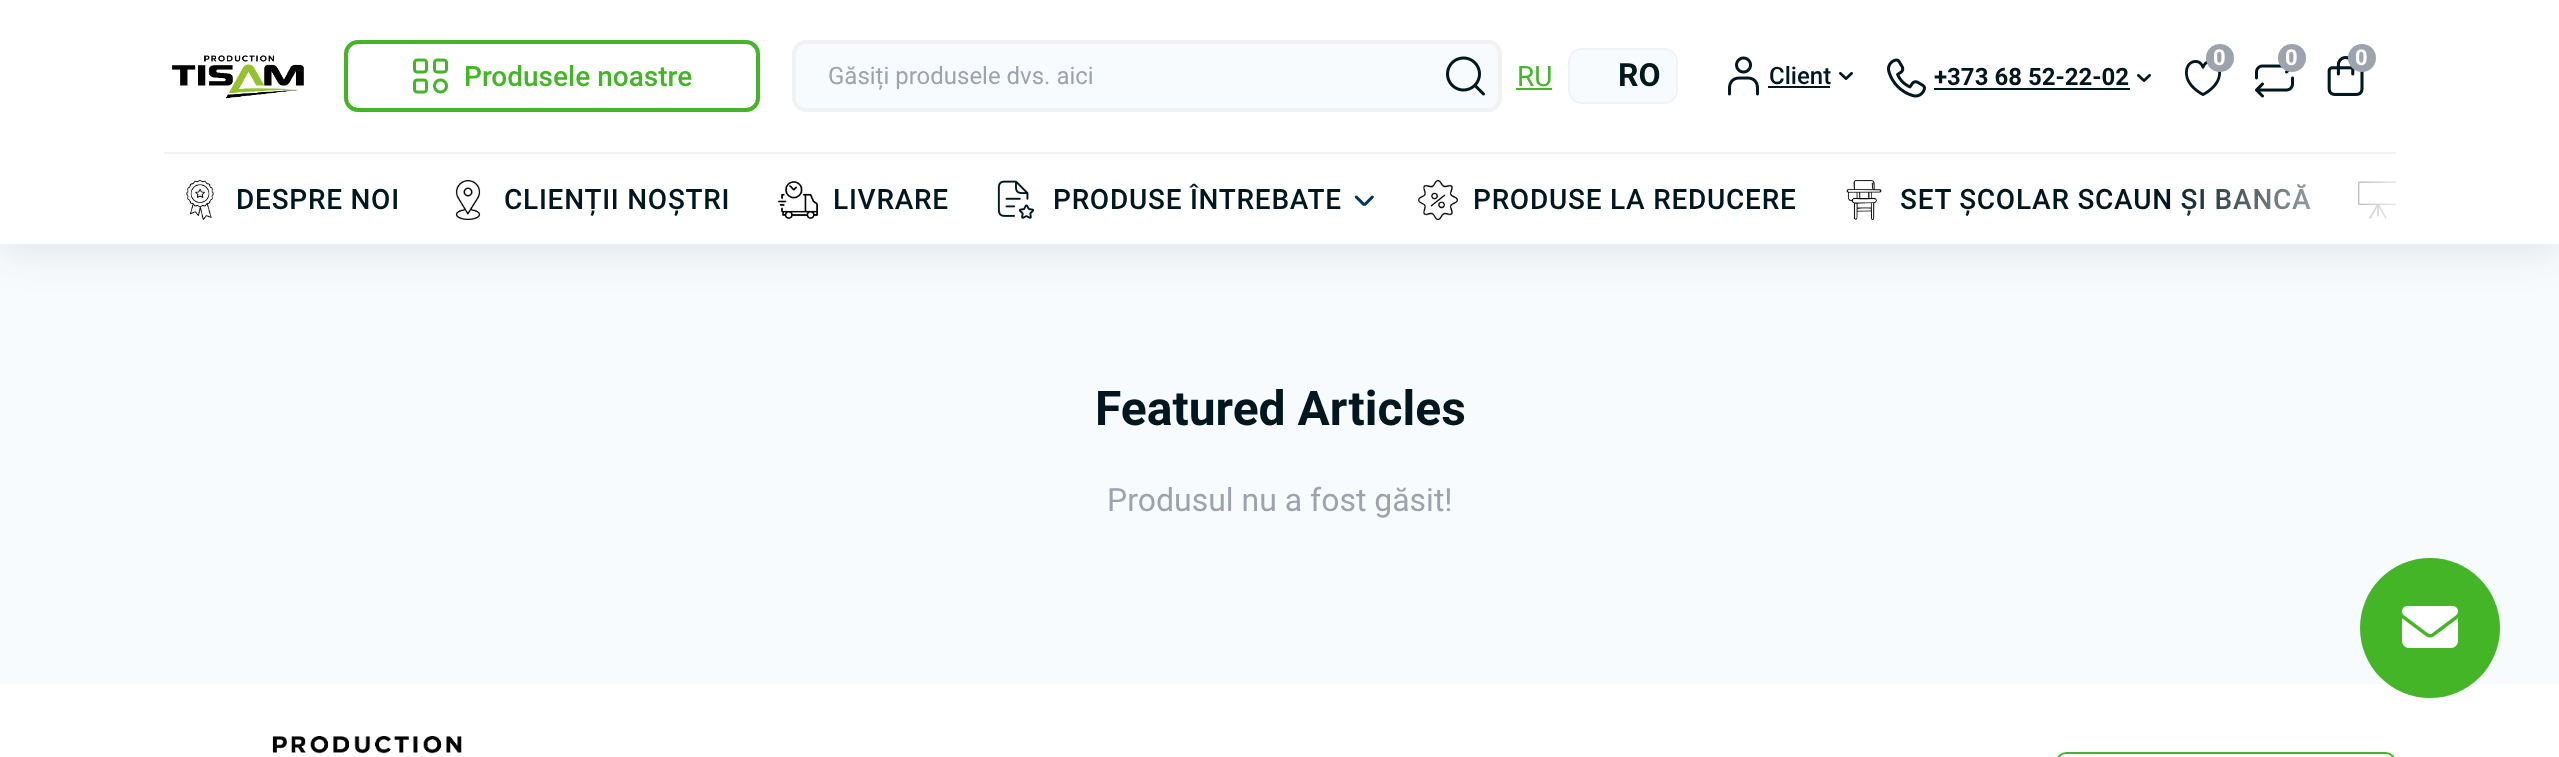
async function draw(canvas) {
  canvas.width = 2559
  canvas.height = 757
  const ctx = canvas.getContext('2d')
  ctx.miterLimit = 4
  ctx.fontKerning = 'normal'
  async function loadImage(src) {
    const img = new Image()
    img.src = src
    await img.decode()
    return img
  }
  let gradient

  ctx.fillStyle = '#f8fbfd'
  ctx.fillRect(0, 0, 2559, 757)
  ctx.fillStyle = '#2526271a'
  ctx.filter = 'blur(20px)'
  ctx.beginPath()
  ctx.rect(0, 8, 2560, 244)
  ctx.fill()
  ctx.filter = 'none'
  ctx.fillStyle = '#fff'
  ctx.fillRect(0, 0, 2559, 244)
  ctx.drawImage(await loadImage('image0.png'), 172, 55, 132, 44)
  ctx.beginPath()
  ctx.roundRect(346, 42, 412, 68, 12)
  ctx.strokeStyle = '#43b526'
  ctx.lineWidth = 4
  ctx.stroke()
  ctx.drawImage(await loadImage('image1.png'), 413, 58, 35, 36)
  ctx.font = '500 28px Roboto'
  ctx.fillStyle = '#43b526'
  ctx.fillText('Produsele noastre', 464, 86)
  ctx.drawImage(await loadImage('image2.png'), 2185, 60, 36, 36)
  ctx.fillStyle = '#9ca3af'
  ctx.beginPath()
  ctx.arc(2220, 58, 14, 0, 2 * Math.PI)
  ctx.fill()
  ctx.font = 'bold 22px Roboto'
  ctx.fillStyle = '#fff'
  ctx.fillText('0', 2213, 65)
  ctx.drawImage(await loadImage('image3.png'), 2255, 64, 39, 34)
  ctx.fillStyle = '#9ca3af'
  ctx.beginPath()
  ctx.arc(2292, 58, 14, 0, 2 * Math.PI)
  ctx.fill()
  ctx.fillStyle = '#fff'
  ctx.fillText('0', 2285, 65)
  ctx.drawImage(await loadImage('image4.png'), 2327, 56, 37, 40)
  ctx.fillStyle = '#9ca3af'
  ctx.beginPath()
  ctx.arc(2362, 58, 14, 0, 2 * Math.PI)
  ctx.fill()
  ctx.fillStyle = '#fff'
  ctx.fillText('0', 2355, 65)
  ctx.fillStyle = '#f8fbfd'
  ctx.beginPath()
  ctx.roundRect(794, 42, 706, 68, 12)
  ctx.fill()
  ctx.strokeStyle = '#f2f2f2'
  ctx.stroke()
  ctx.font = '24px Roboto'
  ctx.fillStyle = '#9ca3af'
  ctx.fillText('Găsiți produsele dvs. aici', 828, 84)
  ctx.drawImage(await loadImage('image5.png'), 1446, 56, 39, 40)
  ctx.font = '28px Roboto'
  ctx.fillStyle = '#43b526'
  ctx.fillText('RU', 1517, 86)
  ctx.fillRect(1516, 88, 36, 2)
  ctx.fillStyle = '#f8fbfd'
  ctx.beginPath()
  ctx.roundRect(1569, 49, 108, 54, 13)
  ctx.fill()
  ctx.lineWidth = 2
  ctx.stroke()
  ctx.font = 'bold 32px Roboto'
  ctx.fillStyle = '#00171f'
  ctx.fillText('RO', 1618, 86)
  ctx.drawImage(await loadImage('image6.png'), 1728, 56, 31, 40)
  ctx.font = '500 24px Roboto'
  ctx.fillText('Client', 1769, 84)
  ctx.fillRect(1768, 86, 62, 2)
  ctx.drawImage(await loadImage('image7.png'), 1839, 72, 14, 8)
  ctx.drawImage(await loadImage('image8.png'), 1887, 58, 39, 40)
  ctx.font = 'bold 24px Roboto'
  ctx.fillText('+373 68 52-22-02', 1934, 85)
  ctx.fillRect(1934, 88, 196, 2)
  ctx.drawImage(await loadImage('image7.png'), 2137, 74, 14, 8)
  ctx.fillStyle = '#f2f2f2'
  ctx.fillRect(164, 152, 2232, 2)
  ctx.letterSpacing = '0.75px'
  ctx.font = '500 28px Roboto'
  ctx.fillStyle = '#00171f'
  ctx.fillText('SET ȘCOLAR SCAUN ȘI BANCĂ', 1900, 209)
  ctx.drawImage(await loadImage('image16.png'), 2358, 181, 38, 38)
  gradient = ctx.createLinearGradient(2164, 199, 2420, 199)
  gradient.addColorStop(0, '#ffffff00')
  gradient.addColorStop(1, '#fff')
  ctx.fillStyle = gradient
  ctx.fillRect(2181, 181, 215, 38)
  ctx.drawImage(await loadImage('image9.png'), 186, 180, 28, 40)
  ctx.fillStyle = '#00171f'
  ctx.fillText('DESPRE NOI', 236, 209)
  ctx.drawImage(await loadImage('image10.png'), 455, 180, 26, 40)
  ctx.fillText('CLIENȚII NOȘTRI', 504, 209)
  ctx.drawImage(await loadImage('image11.png'), 778, 181, 40, 38)
  ctx.fillText('LIVRARE', 833, 209)
  ctx.drawImage(await loadImage('image12.png'), 997, 180, 38, 39)
  ctx.fillText('PRODUSE ÎNTREBATE', 1053, 209)
  ctx.drawImage(await loadImage('image13.png'), 1354, 195, 20, 11)
  ctx.drawImage(await loadImage('image14.png'), 1418, 180, 40, 40)
  ctx.fillText('PRODUSE LA REDUCERE', 1473, 209)
  ctx.drawImage(await loadImage('image15.png'), 1846, 180, 36, 40)
  ctx.letterSpacing = '0px'
  ctx.font = 'bold 48px Roboto'
  ctx.fillText('Featured Articles', 1095, 425)
  ctx.font = '32px Roboto'
  ctx.fillStyle = '#9ca3af'
  ctx.fillText('Produsul nu a fost găsit!', 1107, 511)
  ctx.fillStyle = '#fff'
  ctx.fillRect(0, 684, 2559, 73)
  ctx.fillStyle = '#43b526'
  ctx.beginPath()
  ctx.arc(2430, 628, 70, 0, 2 * Math.PI)
  ctx.fill()
  ctx.drawImage(await loadImage('image17.png'), 2402, 606, 56, 42)
  ctx.drawImage(await loadImage('image18.png'), 272, 736, 190, 18)
  ctx.beginPath()
  ctx.roundRect(2057, 753, 338, 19, 13)
  ctx.strokeStyle = '#43b526'
  ctx.stroke()
}

draw(document.querySelector('canvas'))
